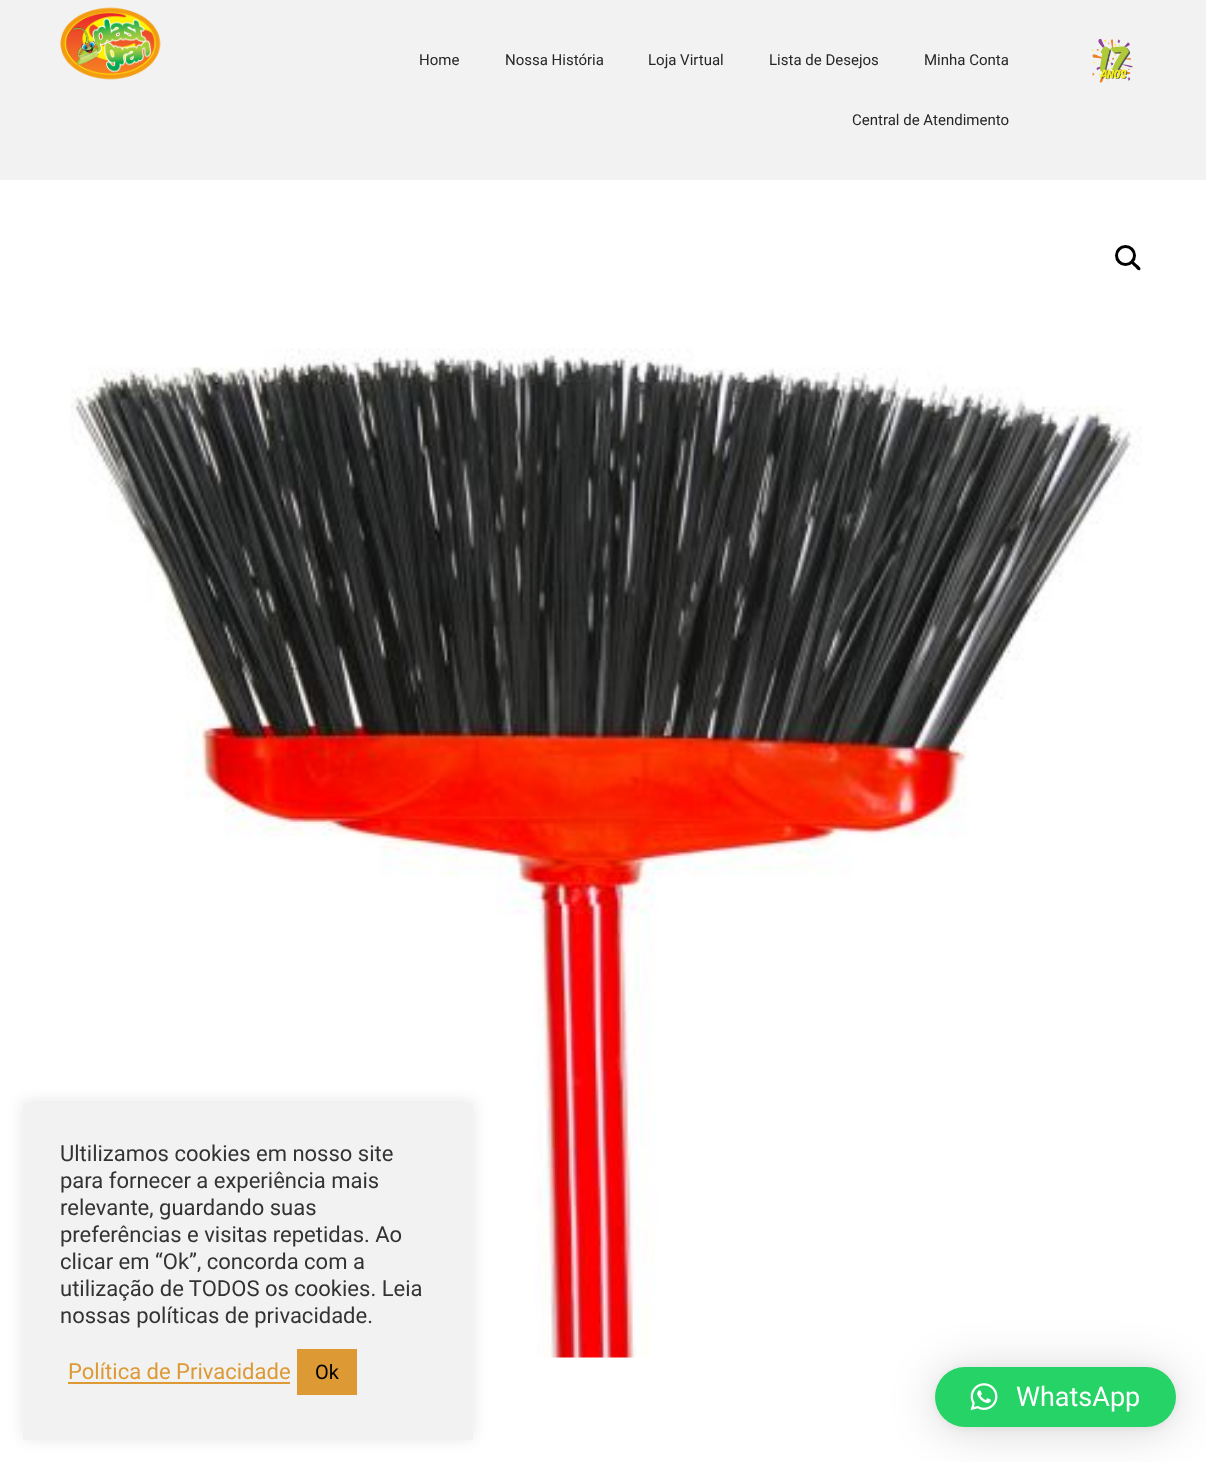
async function draw(canvas) {
  canvas.width = 1206
  canvas.height = 1462
  const ctx = canvas.getContext('2d')
  ctx.miterLimit = 4
  ctx.fontKerning = 'normal'
  async function loadImage(src) {
    const img = new Image()
    img.src = src
    await img.decode()
    return img
  }

  ctx.fillStyle = '#fff'
  ctx.fillRect(0, 0, 1206, 1462)
  ctx.fillStyle = '#f2f2f2'
  ctx.fillRect(0, 0, 1206, 180)
  ctx.drawImage(await loadImage('image0.png'), 60, 7, 101, 73)
  ctx.font = '15px Roboto'
  ctx.fillStyle = '#262626'
  ctx.fillText('Home', 419, 65)
  ctx.fillText('Nossa História', 505, 65)
  ctx.fillText('Loja Virtual', 648, 65)
  ctx.fillText('Lista de Desejos', 769, 65)
  ctx.fillText('Minha Conta', 924, 65)
  ctx.fillText('Central de Atendimento', 852, 125)
  ctx.drawImage(await loadImage('image1.png'), 1092, 39, 42, 44)
  ctx.beginPath()
  ctx.arc(1125.5, 255.5, 9, 0, 2 * Math.PI)
  ctx.strokeStyle = '#000'
  ctx.lineWidth = 3
  ctx.stroke()
  ctx.fillStyle = '#000'
  ctx.beginPath()
  ctx.moveTo(1131.5, 261.5)
  ctx.bezierCurveTo(1133.5, 260, 1136, 264, 1137, 264.5)
  ctx.bezierCurveTo(1138, 265.5, 1142, 268.5, 1140, 270)
  ctx.bezierCurveTo(1138.5, 271.5, 1136, 268, 1135, 267)
  ctx.bezierCurveTo(1134, 266, 1130, 263, 1131.5, 261.5)
  ctx.closePath()
  ctx.fill()
  ctx.drawImage(await loadImage('image2.png'), 70, 348, 1072, 1010)
  ctx.fillStyle = '#acabab4d'
  ctx.filter = 'blur(7.5px)'
  ctx.beginPath()
  ctx.rect(23, 1101, 450, 338)
  ctx.fill()
  ctx.filter = 'none'
  ctx.fillStyle = '#f2f2f2'
  ctx.fillRect(23, 1103, 450, 337)
  ctx.font = '22px Roboto'
  ctx.fillStyle = '#333'
  ctx.fillText('Ultilizamos cookies em nosso site', 60, 1161)
  ctx.fillText('para fornecer a experiência mais', 60, 1188)
  ctx.fillText('relevante, guardando suas', 60, 1215)
  ctx.fillText('preferências e visitas repetidas. Ao', 60, 1242)
  ctx.fillText('clicar em “Ok”, concorda com a', 60, 1269)
  ctx.fillText('utilização de TODOS os cookies. Leia', 60, 1296)
  ctx.fillText('nossas políticas de privacidade.', 60, 1323)
  ctx.fillStyle = '#d93'
  ctx.fillText('Política de Privacidade', 68, 1379)
  ctx.fillRect(68, 1382, 222, 2)
  ctx.fillRect(297, 1349, 60, 46)
  ctx.font = '20px Roboto'
  ctx.fillStyle = '#000'
  ctx.fillText('Ok', 315, 1379)
  ctx.fillStyle = '#00000029'
  ctx.filter = 'blur(24px)'
  ctx.beginPath()
  ctx.roundRect(935, 1370, 241, 60, 30)
  ctx.fill()
  ctx.filter = 'none'
  ctx.fillStyle = '#0000000f'
  ctx.filter = 'blur(4.5px)'
  ctx.beginPath()
  ctx.roundRect(935, 1368, 241, 60, 30)
  ctx.fill()
  ctx.filter = 'none'
  ctx.fillStyle = '#25d366'
  ctx.beginPath()
  ctx.roundRect(935, 1367, 241, 60, 30)
  ctx.fill()
  ctx.drawImage(await loadImage('image3.png'), 970, 1383, 28, 28)
  ctx.font = '27px Roboto'
  ctx.fillStyle = '#fff'
  ctx.fillText('WhatsApp', 1016, 1406)
}

draw(document.querySelector('canvas'))
